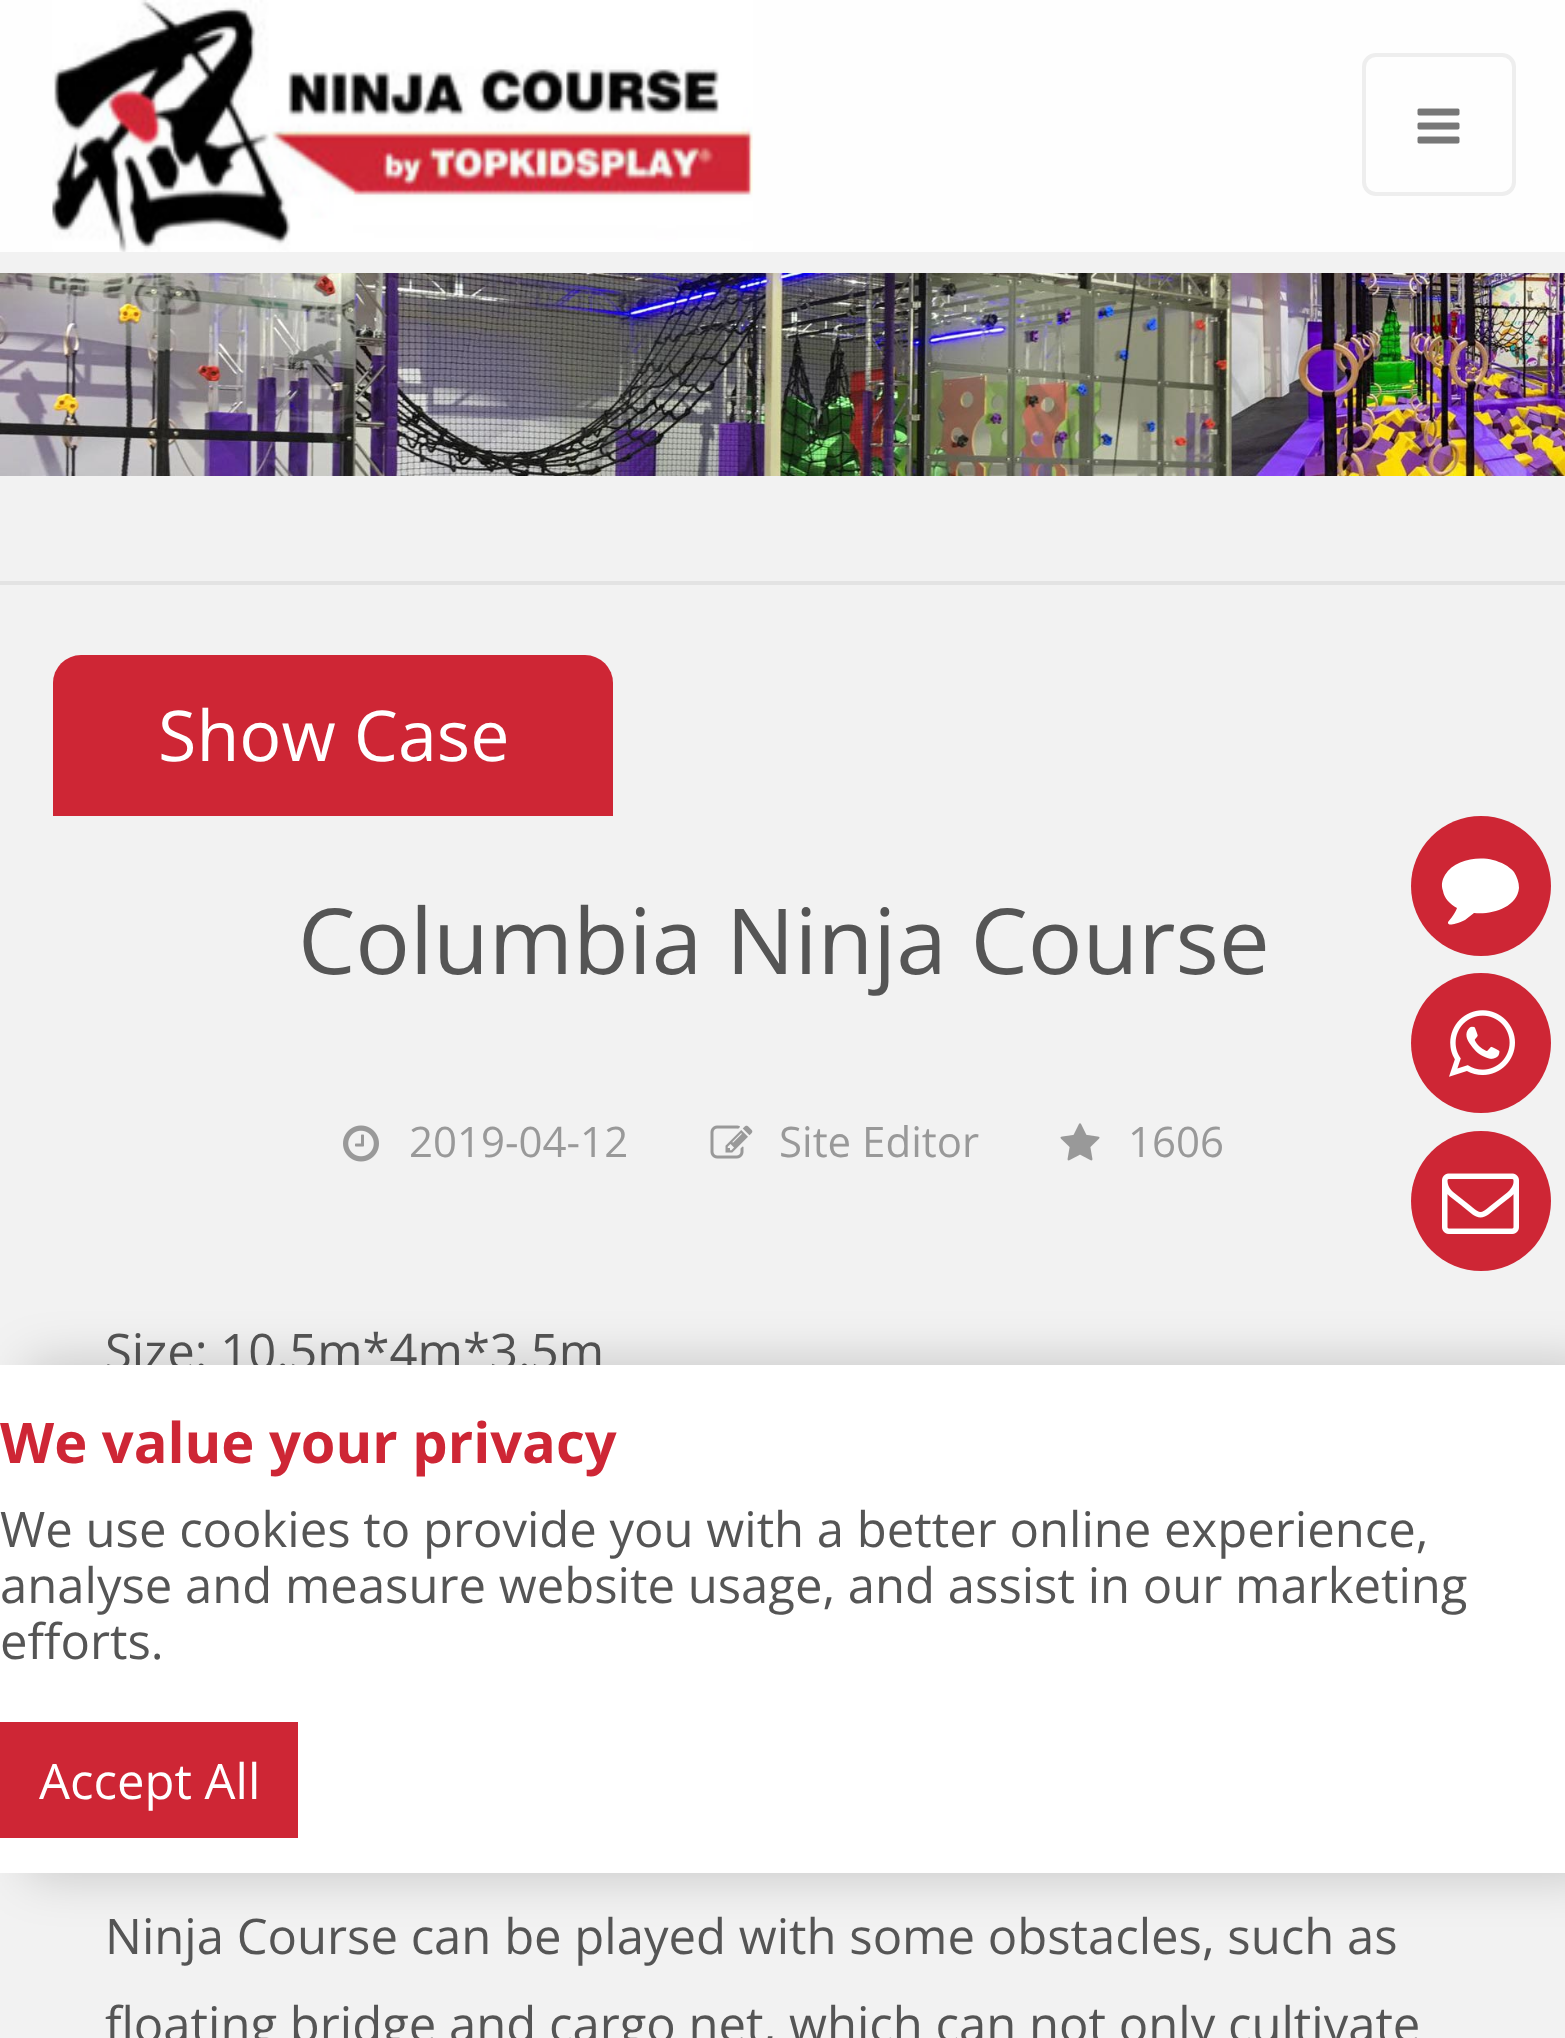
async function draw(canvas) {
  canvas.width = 1565
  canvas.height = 2038
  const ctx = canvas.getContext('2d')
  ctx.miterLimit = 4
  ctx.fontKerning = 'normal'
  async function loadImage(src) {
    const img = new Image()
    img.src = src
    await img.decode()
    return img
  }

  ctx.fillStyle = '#f2f2f2'
  ctx.fillRect(0, 0, 1565, 2038)
  ctx.fillStyle = '#fefefe'
  ctx.fillRect(0, 0, 1565, 252)
  ctx.drawImage(await loadImage('image0.png'), 52, 0, 701, 252)
  ctx.beginPath()
  ctx.roundRect(1364, 55, 150, 139, 12)
  ctx.strokeStyle = '#eee'
  ctx.lineWidth = 4
  ctx.stroke()
  ctx.drawImage(await loadImage('image1.png'), 1417, 108, 43, 36)
  ctx.drawImage(await loadImage('image2.png'), 0, 273, 1565, 203)
  ctx.fillStyle = '#e3e3e3'
  ctx.fillRect(0, 581, 1565, 4)
  ctx.fillStyle = '#ce2635'
  ctx.beginPath()
  ctx.roundRect(53, 655, 560, 161, [28, 28, 0, 0])
  ctx.fill()
  ctx.font = '70px Open Sans'
  ctx.fillStyle = '#fff'
  ctx.fillText('Show Case', 158, 761)
  ctx.fillStyle = '#ce2635'
  ctx.beginPath()
  ctx.arc(1481, 886, 70, 0, 2 * Math.PI)
  ctx.fill()
  ctx.fillStyle = '#fff'
  ctx.beginPath()
  ctx.moveTo(1514, 872)
  ctx.bezierCurveTo(1517, 877, 1519, 882, 1519, 888)
  ctx.bezierCurveTo(1517, 908, 1491, 915, 1474, 913)
  ctx.lineTo(1465, 920)
  ctx.bezierCurveTo(1452, 926, 1448, 925, 1448, 923)
  ctx.lineTo(1448, 922)
  ctx.lineTo(1452, 917)
  ctx.bezierCurveTo(1454, 914, 1456, 911, 1457, 908)
  ctx.bezierCurveTo(1450, 904, 1444, 898, 1443, 891)
  ctx.bezierCurveTo(1441, 885, 1442, 880, 1445, 875)
  ctx.bezierCurveTo(1454, 860, 1477, 856, 1493, 860)
  ctx.bezierCurveTo(1501, 862, 1509, 866, 1514, 872)
  ctx.closePath()
  ctx.fill()
  ctx.font = '91px Open Sans'
  ctx.fillStyle = '#555'
  ctx.fillText('Columbia Ninja Course', 298, 974)
  ctx.drawImage(await loadImage('image3.png'), 343, 1125, 36, 37)
  ctx.font = '42px Open Sans'
  ctx.fillStyle = '#999'
  ctx.fillText('2019-04-12', 409, 1157)
  ctx.drawImage(await loadImage('image4.png'), 710, 1125, 43, 34)
  ctx.fillText('Site Editor', 779, 1157)
  ctx.drawImage(await loadImage('image5.png'), 1060, 1123, 40, 38)
  ctx.fillText('1606', 1128, 1157)
  ctx.font = '49px Open Sans'
  ctx.fillStyle = '#555'
  ctx.fillText('Size: 10.5m*4m*3.5m', 105, 1369)
  ctx.fillText('Ninja Course can be played with some obstacles, such as', 105, 1954)
  ctx.fillText('floating bridge and cargo net, which can not only cultivate', 105, 2042)
  ctx.fillStyle = '#ce2635'
  ctx.beginPath()
  ctx.arc(1481, 1043, 70, 0, 2 * Math.PI)
  ctx.fill()
  ctx.drawImage(await loadImage('image6.png'), 1449, 1010, 66, 67)
  ctx.beginPath()
  ctx.arc(1481, 1201, 70, 0, 2 * Math.PI)
  ctx.fill()
  ctx.drawImage(await loadImage('image7.png'), 1442, 1173, 77, 61)
  ctx.fillStyle = '#00000033'
  ctx.filter = 'blur(26px)'
  ctx.beginPath()
  ctx.rect(28, 1365, 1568, 508)
  ctx.fill()
  ctx.filter = 'none'
  ctx.fillStyle = '#fff'
  ctx.fillRect(0, 1365, 1565, 508)
  ctx.font = 'bold 56px Open Sans'
  ctx.fillStyle = '#ce2635'
  ctx.fillText('We value your privacy', 0, 1463)
  ctx.font = '49px Open Sans'
  ctx.fillStyle = '#555'
  ctx.fillText('We use cookies to provide you with a better online experience,', 0, 1547)
  ctx.fillText('analyse and measure website usage, and assist in our marketing', 0, 1603)
  ctx.fillText('efforts.', 0, 1659)
  ctx.fillStyle = '#ce2635'
  ctx.fillRect(0, 1722, 298, 116)
  ctx.fillStyle = '#fff'
  ctx.fillText('Accept All', 39, 1799)
}

draw(document.querySelector('canvas'))
